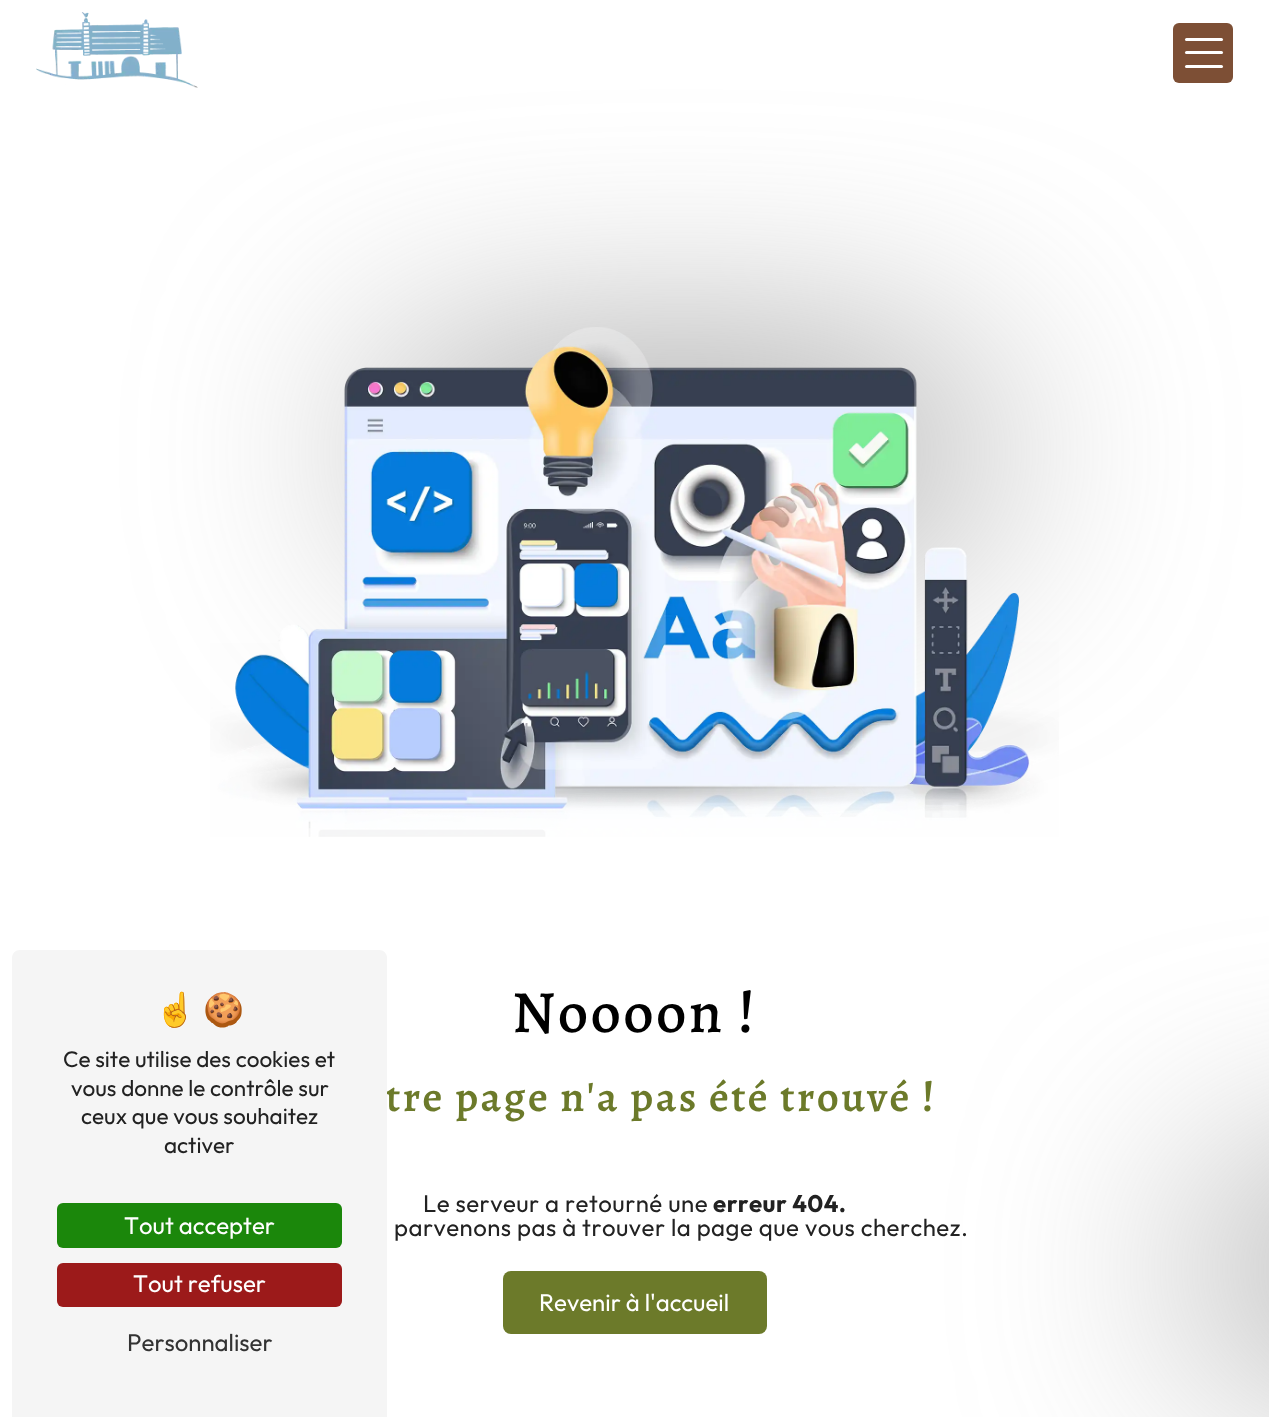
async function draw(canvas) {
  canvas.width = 1269
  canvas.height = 1417
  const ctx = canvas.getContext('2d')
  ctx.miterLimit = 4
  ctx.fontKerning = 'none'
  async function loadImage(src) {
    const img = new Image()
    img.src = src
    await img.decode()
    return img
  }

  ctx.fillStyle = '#fff'
  ctx.fillRect(0, 0, 1269, 1417)
  ctx.fillStyle = '#808080'
  ctx.filter = 'blur(120px)'
  ctx.beginPath()
  ctx.roundRect(381, 377, 600, 150, 75)
  ctx.fill()
  ctx.filter = 'none'
  ctx.drawImage(await loadImage('image0.png'), 36, 12, 162, 76)
  ctx.fillStyle = '#7d4f35'
  ctx.beginPath()
  ctx.roundRect(1173, 23, 60, 60, 6)
  ctx.fill()
  ctx.fillStyle = '#fff'
  ctx.beginPath()
  ctx.roundRect(1185, 51, 38, 3, 1.5)
  ctx.fill()
  ctx.beginPath()
  ctx.roundRect(1185, 38, 38, 3, 1.5)
  ctx.fill()
  ctx.beginPath()
  ctx.roundRect(1185, 65, 38, 3, 1.5)
  ctx.fill()
  ctx.fillStyle = '#808080'
  ctx.filter = 'blur(120px)'
  ctx.beginPath()
  ctx.roundRect(1206, 1194, 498, 150, 75)
  ctx.fill()
  ctx.filter = 'none'
  ctx.letterSpacing = '2.4px'
  ctx.font = '600 43.25px Alegreya'
  ctx.fillStyle = '#6c7a2a'
  ctx.fillText('tre page n\'a pas été trouvé !', 386, 1111)
  ctx.fillStyle = '#f5f5f5'
  ctx.beginPath()
  ctx.moveTo(20, 950)
  ctx.lineTo(379, 950)
  ctx.bezierCurveTo(383.5, 950, 387, 953.5, 387, 958)
  ctx.lineTo(387, 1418)
  ctx.lineTo(12, 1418)
  ctx.lineTo(12, 958)
  ctx.bezierCurveTo(12, 953.5, 15.5, 950, 20, 950)
  ctx.closePath()
  ctx.fill()
  ctx.letterSpacing = '0px'
  ctx.font = '33px Noto Color Emoji'
  ctx.fillStyle = '#222'
  ctx.fillText('☝', 155, 1021)
  ctx.fillText('🍪', 203, 1021)
  ctx.font = '22.5px Outfit'
  ctx.fillText('Ce site utilise des cookies et', 63, 1067)
  ctx.fillText('vous donne le contrôle sur', 71, 1096)
  ctx.fillText('ceux que vous souhaitez', 81, 1124)
  ctx.fillText('activer', 164, 1153)
  ctx.fillStyle = '#1b870b'
  ctx.beginPath()
  ctx.roundRect(57, 1203, 285, 45, 6)
  ctx.fill()
  ctx.font = '24px Outfit'
  ctx.fillStyle = '#fff'
  ctx.fillText('Tout accepter', 124, 1234)
  ctx.fillStyle = '#9c1a1a'
  ctx.beginPath()
  ctx.roundRect(57, 1263, 285, 44, 6)
  ctx.fill()
  ctx.fillStyle = '#fff'
  ctx.fillText('Tout refuser', 133, 1292)
  ctx.fillStyle = '#333'
  ctx.fillText('Personnaliser', 127, 1351)
  ctx.drawImage(await loadImage('image1.png'), 210, 327, 849, 510)
  ctx.letterSpacing = '2.4px'
  ctx.font = '500 60px Alegreya'
  ctx.fillStyle = '#000'
  ctx.fillText('Noooon !', 512, 1032)
  ctx.letterSpacing = '0.48px'
  ctx.font = '24px Outfit'
  ctx.fillStyle = '#222'
  ctx.fillText('Le serveur a retourné une', 423, 1212)
  ctx.font = 'bold 24px Outfit'
  ctx.fillText('erreur 404.', 713, 1212)
  ctx.font = '24px Outfit'
  ctx.fillText('parvenons pas à trouver la page que vous cherchez.', 394, 1236)
  ctx.fillStyle = '#6c7a2a'
  ctx.beginPath()
  ctx.roundRect(503, 1271, 264, 63, 8)
  ctx.fill()
  ctx.letterSpacing = '0px'
  ctx.fillStyle = '#fff'
  ctx.fillText('Revenir à l\'accueil', 539, 1311)
}

draw(document.querySelector('canvas'))
